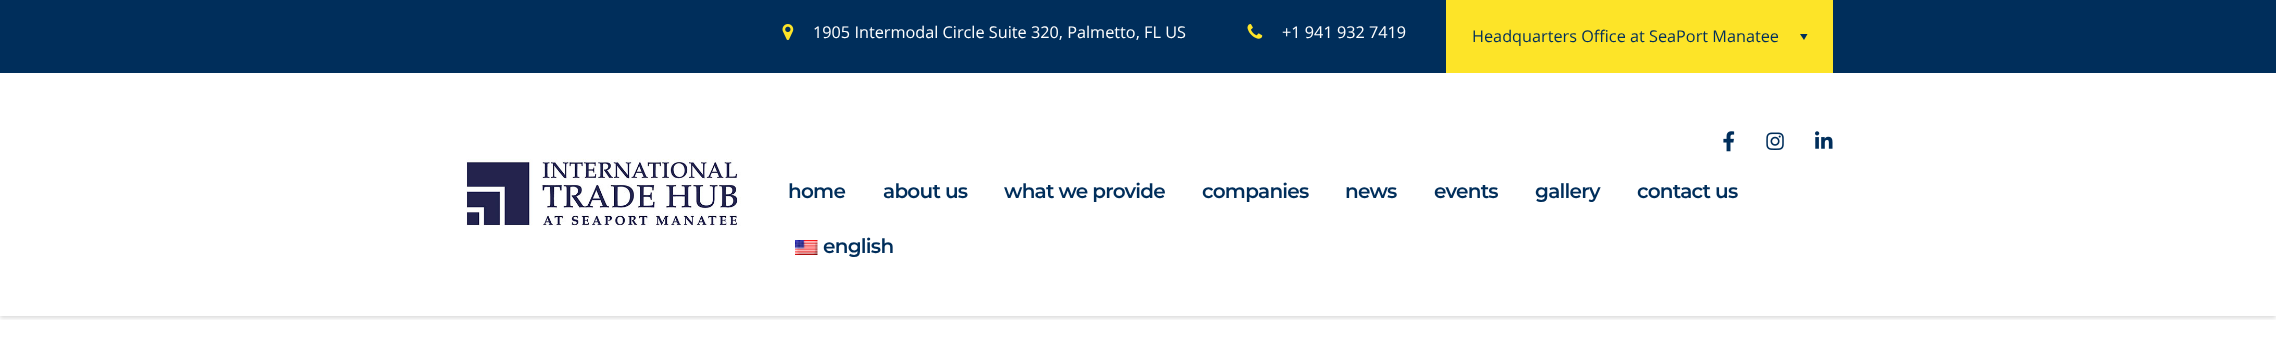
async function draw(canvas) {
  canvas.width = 2276
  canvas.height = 355
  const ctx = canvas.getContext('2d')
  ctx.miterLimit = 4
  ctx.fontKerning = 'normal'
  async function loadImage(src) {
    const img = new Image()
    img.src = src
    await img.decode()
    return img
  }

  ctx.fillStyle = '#fff'
  ctx.fillRect(0, 0, 2276, 355)
  ctx.save()
  ctx.beginPath()
  ctx.rect(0, 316, 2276, 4)
  ctx.clip()
  ctx.fillStyle = '#00000026'
  ctx.filter = 'blur(2px)'
  ctx.beginPath()
  ctx.rect(0, 74, 2276, 244)
  ctx.fill()
  ctx.filter = 'none'
  ctx.restore()
  ctx.fillStyle = '#002e5b'
  ctx.fillRect(0, 0, 2276, 73)
  ctx.drawImage(await loadImage('image0.png'), 782, 24, 12, 17)
  ctx.font = '16.25px Open Sans'
  ctx.fillStyle = '#fff'
  ctx.fillText('1905 Intermodal Circle Suite 320, Palmetto, FL US', 813, 38)
  ctx.drawImage(await loadImage('image1.png'), 1247, 24, 16, 15)
  ctx.fillText('+1 941 932 7419', 1282, 38)
  ctx.fillStyle = '#fde428'
  ctx.fillRect(1446, 0, 387, 73)
  ctx.fillStyle = '#002e5b'
  ctx.fillText('Headquarters Office at SeaPort Manatee', 1472, 42)
  ctx.beginPath()
  ctx.moveTo(1800, 34)
  ctx.lineTo(1807.5, 34)
  ctx.lineTo(1804, 40)
  ctx.closePath()
  ctx.fill()
  ctx.drawImage(await loadImage('image2.png'), 466, 159, 275, 67)
  ctx.drawImage(await loadImage('image3.png'), 1723, 131, 12, 21)
  ctx.drawImage(await loadImage('image4.png'), 1766, 132, 18, 18)
  ctx.drawImage(await loadImage('image5.png'), 1815, 131, 18, 18)
  ctx.letterSpacing = '-0.75px'
  ctx.font = '600 20px Montserrat'
  ctx.fillText('home', 788, 198)
  ctx.fillText('about us', 883, 198)
  ctx.fillText('what we provide', 1004, 198)
  ctx.fillText('companies', 1202, 198)
  ctx.fillText('news', 1345, 198)
  ctx.fillText('events', 1434, 198)
  ctx.fillText('gallery', 1535, 198)
  ctx.fillText('contact us', 1637, 198)
  ctx.drawImage(await loadImage('image6.png'), 795, 240, 23, 15)
  ctx.fillText('english', 823, 253)
}

draw(document.querySelector('canvas'))
